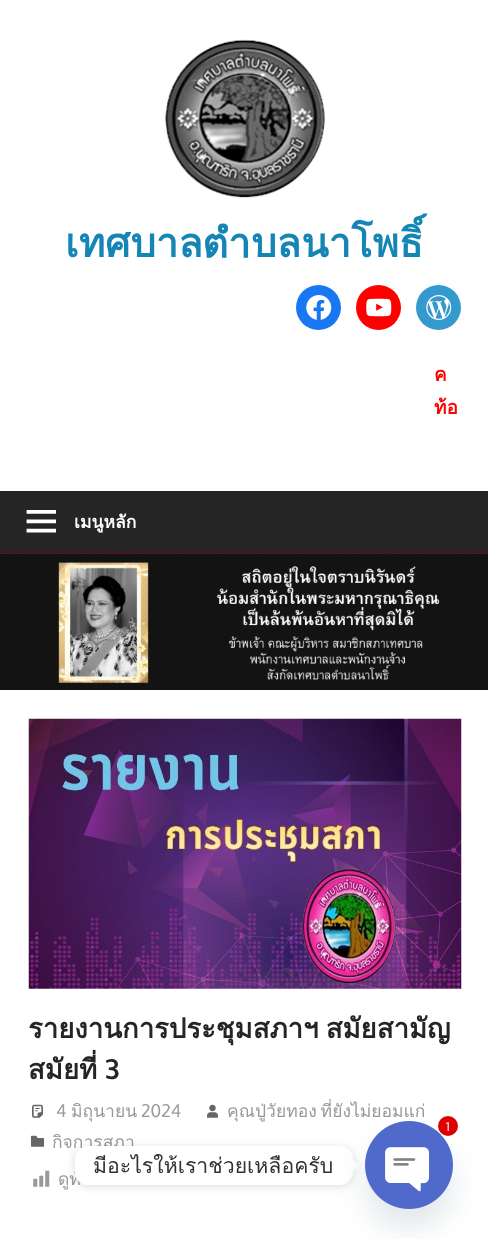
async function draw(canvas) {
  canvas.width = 488
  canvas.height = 1239
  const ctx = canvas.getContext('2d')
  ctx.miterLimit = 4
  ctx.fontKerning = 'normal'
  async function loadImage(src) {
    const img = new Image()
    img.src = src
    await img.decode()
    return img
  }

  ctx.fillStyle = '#fff'
  ctx.fillRect(0, 0, 488, 1239)
  ctx.drawImage(await loadImage('image0.png'), 0, 553, 488, 1)
  ctx.drawImage(await loadImage('image1.png'), 165, 39, 160, 159)
  ctx.font = 'bold 40px Loma'
  ctx.fillStyle = '#1585b5'
  ctx.fillText('เทศบาลตำบลนาโพธิ์', 65, 257)
  ctx.fillStyle = '#1778f2'
  ctx.beginPath()
  ctx.arc(318.5, 307.5, 22.5, 0, 2 * Math.PI)
  ctx.fill()
  ctx.drawImage(await loadImage('image2.png'), 306, 295, 26, 25)
  ctx.fillStyle = '#f00'
  ctx.beginPath()
  ctx.arc(378.5, 307.5, 22.5, 0, 2 * Math.PI)
  ctx.fill()
  ctx.drawImage(await loadImage('image3.png'), 366, 298, 26, 19)
  ctx.fillStyle = '#3499cd'
  ctx.beginPath()
  ctx.arc(438.5, 307.5, 22.5, 0, 2 * Math.PI)
  ctx.fill()
  ctx.drawImage(await loadImage('image4.png'), 426, 295, 26, 25)
  ctx.font = 'bold 19px Loma'
  ctx.fillStyle = '#f00'
  ctx.fillText('ค', 434, 381)
  ctx.wordSpacing = '-1px'
  ctx.fillText('ท้อ', 434, 414)
  ctx.fillStyle = '#252525'
  ctx.fillRect(0, 491, 488, 62)
  ctx.drawImage(await loadImage('image5.png'), 26, 510, 30, 23)
  ctx.wordSpacing = '0px'
  ctx.font = 'bold 17.5px Loma'
  ctx.fillStyle = '#fff'
  ctx.fillText('เมนูหลัก', 74, 528)
  ctx.drawImage(await loadImage('image6.png'), 0, 553, 488, 137)
  ctx.drawImage(await loadImage('image7.png'), 28, 718, 434, 271)
  ctx.wordSpacing = '-2px'
  ctx.font = 'bold 27.5px Loma'
  ctx.fillStyle = '#252525'
  ctx.fillText('รายงานการประชุมสภาฯ สมัยสามัญ', 28, 1038)
  ctx.wordSpacing = '0px'
  ctx.fillText('สมัยที่', 28, 1079)
  ctx.font = 'bold 27.5px Oxygen'
  ctx.fillText('3', 105, 1079)
  ctx.drawImage(await loadImage('image8.png'), 32, 1104, 11, 14)
  ctx.font = '17.5px Oxygen'
  ctx.fillStyle = '#999'
  ctx.fillText('4', 56, 1117)
  ctx.font = '17.5px Loma'
  ctx.fillText('มิถุนายน', 71, 1117)
  ctx.font = '17.5px Oxygen'
  ctx.fillText('2024', 141, 1117)
  ctx.drawImage(await loadImage('image9.png'), 207, 1104, 11, 14)
  ctx.wordSpacing = '-2px'
  ctx.font = '17.5px Loma'
  ctx.fillText('คุณปู่วัยทอง ที่ยังไม่ยอมแก่', 227, 1117)
  ctx.wordSpacing = '0px'
  ctx.fillText('กิจการสภา', 52, 1148)
  ctx.drawImage(await loadImage('image10.png'), 30, 1135, 15, 12)
  ctx.drawImage(await loadImage('image11.png'), 33, 1170, 17, 17)
  ctx.fillText('ดูทั้', 58, 1185)
  ctx.fillStyle = '#00000026'
  ctx.filter = 'blur(5px)'
  ctx.beginPath()
  ctx.roundRect(75, 1148, 278, 38, 13)
  ctx.fill()
  ctx.filter = 'none'
  ctx.fillStyle = '#fff'
  ctx.beginPath()
  ctx.roundRect(75, 1146, 278, 39, 13)
  ctx.fill()
  ctx.beginPath()
  ctx.moveTo(352.5, 1172)
  ctx.lineTo(352.5, 1159.5)
  ctx.lineTo(359, 1165.5)
  ctx.closePath()
  ctx.fill()
  ctx.fillStyle = '#49687e29'
  ctx.filter = 'blur(15px)'
  ctx.beginPath()
  ctx.roundRect(365, 1141, 88, 88, 44)
  ctx.fill()
  ctx.filter = 'none'
  ctx.drawImage(await loadImage('image12.png'), 365, 1121, 88, 88)
  ctx.fillStyle = '#d00'
  ctx.beginPath()
  ctx.arc(448, 1126, 10, 0, 2 * Math.PI)
  ctx.fill()
  ctx.font = '12px Oxygen'
  ctx.fillStyle = '#fff'
  ctx.fillText('1', 446, 1131)
  ctx.font = '21.25px Loma'
  ctx.fillStyle = '#333'
  ctx.fillText('มีอะไรให้เราช่วยเหลือครับ', 93, 1173)
}

draw(document.querySelector('canvas'))
